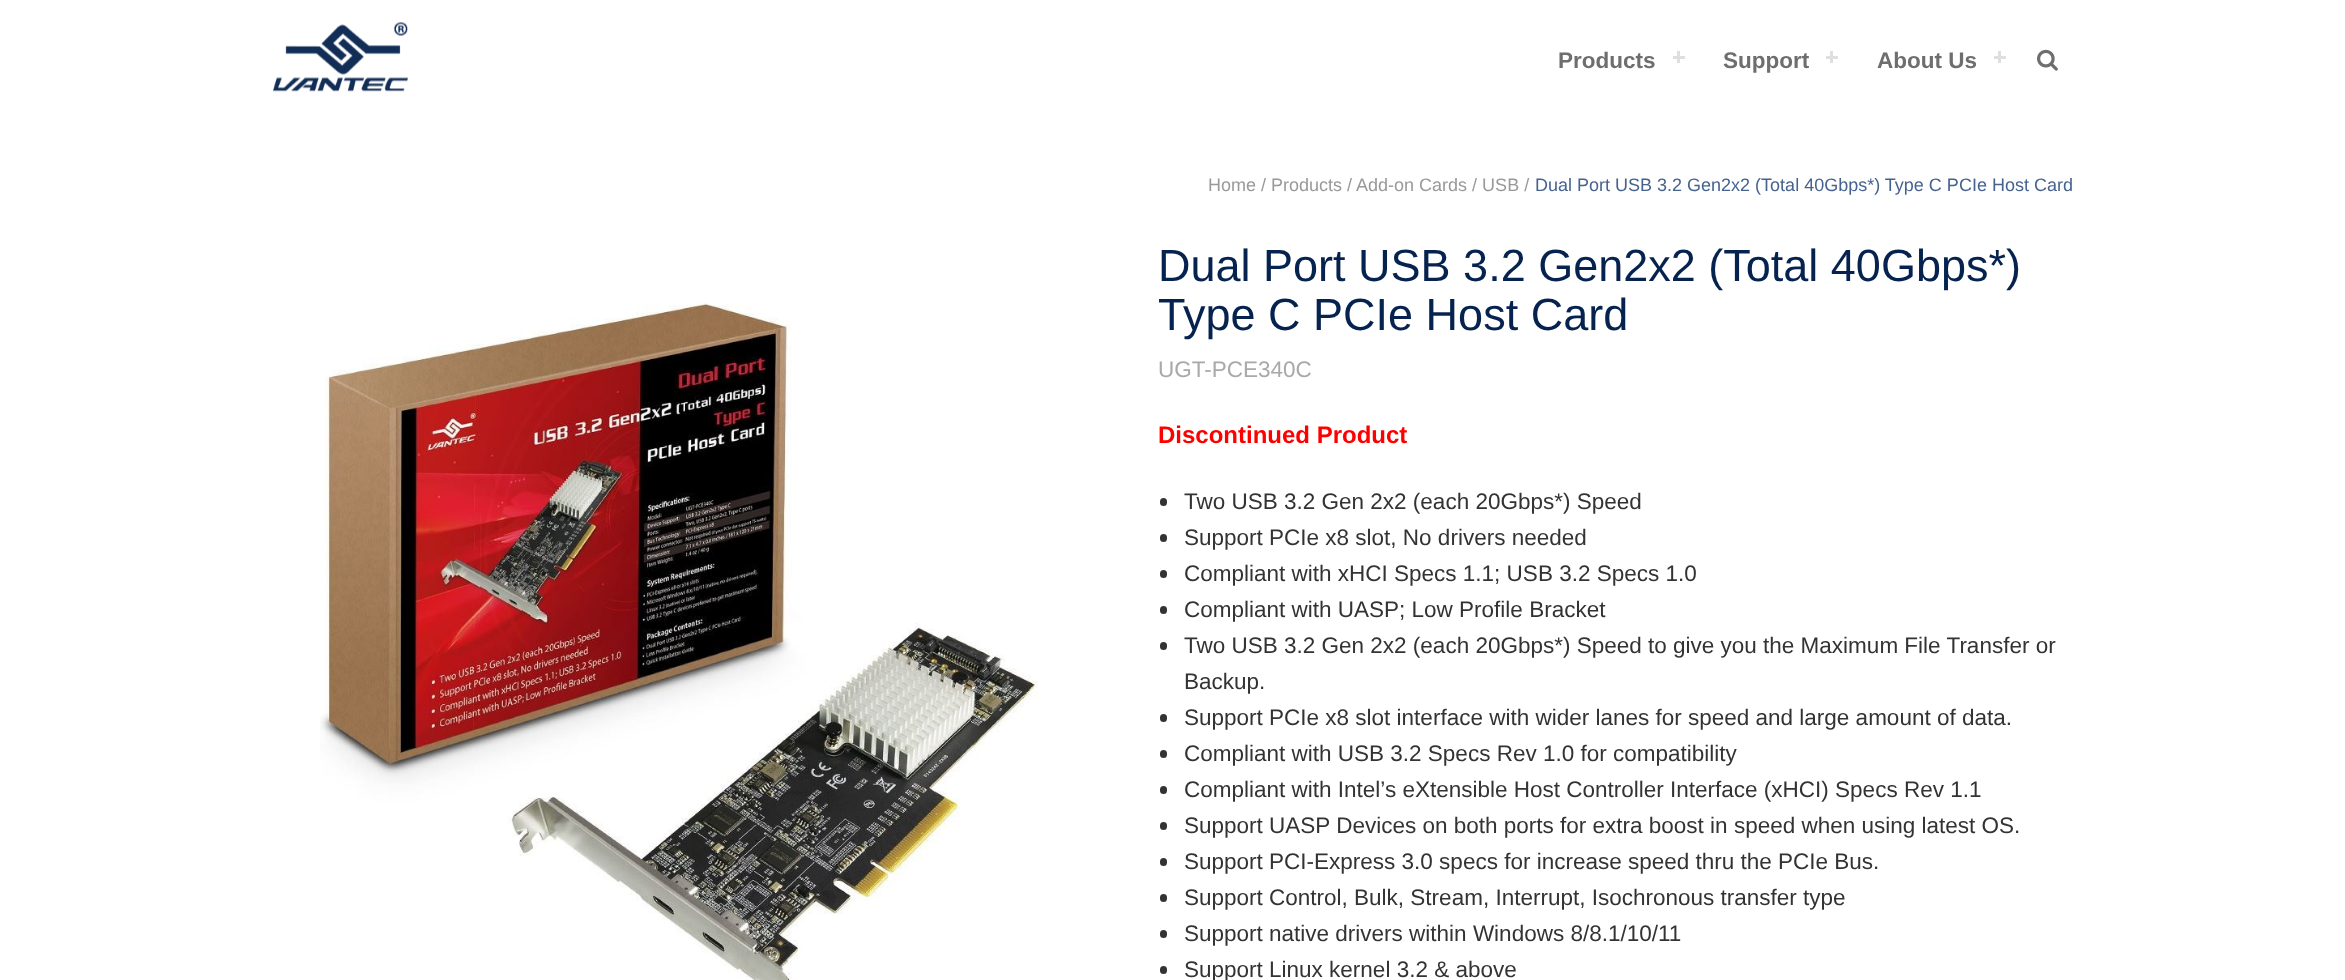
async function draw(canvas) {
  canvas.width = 2345
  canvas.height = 980
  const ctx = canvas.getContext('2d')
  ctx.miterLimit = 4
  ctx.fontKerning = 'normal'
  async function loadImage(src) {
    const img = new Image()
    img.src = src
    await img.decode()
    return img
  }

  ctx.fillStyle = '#fff'
  ctx.fillRect(0, 0, 2345, 980)
  ctx.drawImage(await loadImage('image0.png'), 273, 22, 135, 70)
  ctx.font = 'bold 22.5px Liberation Sans'
  ctx.fillStyle = '#6e6e6e'
  ctx.fillText('Products', 1558, 68)
  ctx.fillStyle = '#dfdfdf'
  ctx.fillRect(1677, 51, 3, 12)
  ctx.fillRect(1673, 56, 12, 3)
  ctx.fillStyle = '#6e6e6e'
  ctx.fillText('Support', 1723, 68)
  ctx.fillStyle = '#dfdfdf'
  ctx.fillRect(1830, 51, 3, 12)
  ctx.fillRect(1826, 56, 12, 3)
  ctx.fillStyle = '#6e6e6e'
  ctx.fillText('About Us', 1877, 68)
  ctx.fillStyle = '#dfdfdf'
  ctx.fillRect(1998, 51, 3, 12)
  ctx.fillRect(1994, 56, 12, 3)
  ctx.drawImage(await loadImage('image1.png'), 2037, 49, 21, 22)
  ctx.font = '18px Liberation Sans'
  ctx.fillStyle = '#999'
  ctx.fillText('Home / Products / Add-on Cards / USB /', 1208, 191)
  ctx.fillStyle = '#46638f'
  ctx.fillText('Dual Port USB 3.2 Gen2x2 (Total 40Gbps*) Type C PCIe Host Card', 1535, 191)
  ctx.drawImage(await loadImage('image2.png'), 320, 303, 718, 677)
  ctx.font = '45px Liberation Sans'
  ctx.fillStyle = '#06234f'
  ctx.fillText('Dual Port USB 3.2 Gen2x2 (Total 40Gbps*)', 1158, 281)
  ctx.fillText('Type C PCIe Host Card', 1158, 330)
  ctx.font = '22.5px Liberation Sans'
  ctx.fillStyle = '#a9a9a9'
  ctx.fillText('UGT-PCE340C', 1158, 377)
  ctx.font = 'bold 24px Liberation Sans'
  ctx.fillStyle = '#f00'
  ctx.fillText('Discontinued Product', 1158, 443)
  ctx.fillStyle = '#333'
  ctx.beginPath()
  ctx.roundRect(1160, 498, 7, 8, 3.5)
  ctx.fill()
  ctx.font = '22.5px Liberation Sans'
  ctx.fillText('Two USB 3.2 Gen 2x2 (each 20Gbps*) Speed', 1184, 509)
  ctx.beginPath()
  ctx.roundRect(1160, 534, 7, 8, 3.5)
  ctx.fill()
  ctx.fillText('Support PCIe x8 slot, No drivers needed', 1184, 545)
  ctx.beginPath()
  ctx.roundRect(1160, 570, 7, 8, 3.5)
  ctx.fill()
  ctx.fillText('Compliant with xHCI Specs 1.1; USB 3.2 Specs 1.0', 1184, 581)
  ctx.beginPath()
  ctx.roundRect(1160, 606, 7, 8, 3.5)
  ctx.fill()
  ctx.fillText('Compliant with UASP; Low Profile Bracket', 1184, 617)
  ctx.beginPath()
  ctx.roundRect(1160, 642, 7, 8, 3.5)
  ctx.fill()
  ctx.fillText('Two USB 3.2 Gen 2x2 (each 20Gbps*) Speed to give you the Maximum File Transfer or', 1184, 653)
  ctx.fillText('Backup.', 1184, 689)
  ctx.beginPath()
  ctx.roundRect(1160, 714, 7, 8, 3.5)
  ctx.fill()
  ctx.fillText('Support PCIe x8 slot interface with wider lanes for speed and large amount of data.', 1184, 725)
  ctx.beginPath()
  ctx.roundRect(1160, 750, 7, 8, 3.5)
  ctx.fill()
  ctx.fillText('Compliant with USB 3.2 Specs Rev 1.0 for compatibility', 1184, 761)
  ctx.beginPath()
  ctx.roundRect(1160, 786, 7, 8, 3.5)
  ctx.fill()
  ctx.fillText('Compliant with Intel’s eXtensible Host Controller Interface (xHCI) Specs Rev 1.1', 1184, 797)
  ctx.beginPath()
  ctx.roundRect(1160, 822, 7, 8, 3.5)
  ctx.fill()
  ctx.fillText('Support UASP Devices on both ports for extra boost in speed when using latest OS.', 1184, 833)
  ctx.beginPath()
  ctx.roundRect(1160, 858, 7, 8, 3.5)
  ctx.fill()
  ctx.fillText('Support PCI-Express 3.0 specs for increase speed thru the PCIe Bus.', 1184, 869)
  ctx.beginPath()
  ctx.roundRect(1160, 894, 7, 8, 3.5)
  ctx.fill()
  ctx.fillText('Support Control, Bulk, Stream, Interrupt, Isochronous transfer type', 1184, 905)
  ctx.beginPath()
  ctx.roundRect(1160, 930, 7, 8, 3.5)
  ctx.fill()
  ctx.fillText('Support native drivers within Windows 8/8.1/10/11', 1184, 941)
  ctx.beginPath()
  ctx.roundRect(1160, 966, 7, 8, 3.5)
  ctx.fill()
  ctx.fillText('Support Linux kernel 3.2 & above', 1184, 977)
}

draw(document.querySelector('canvas'))
